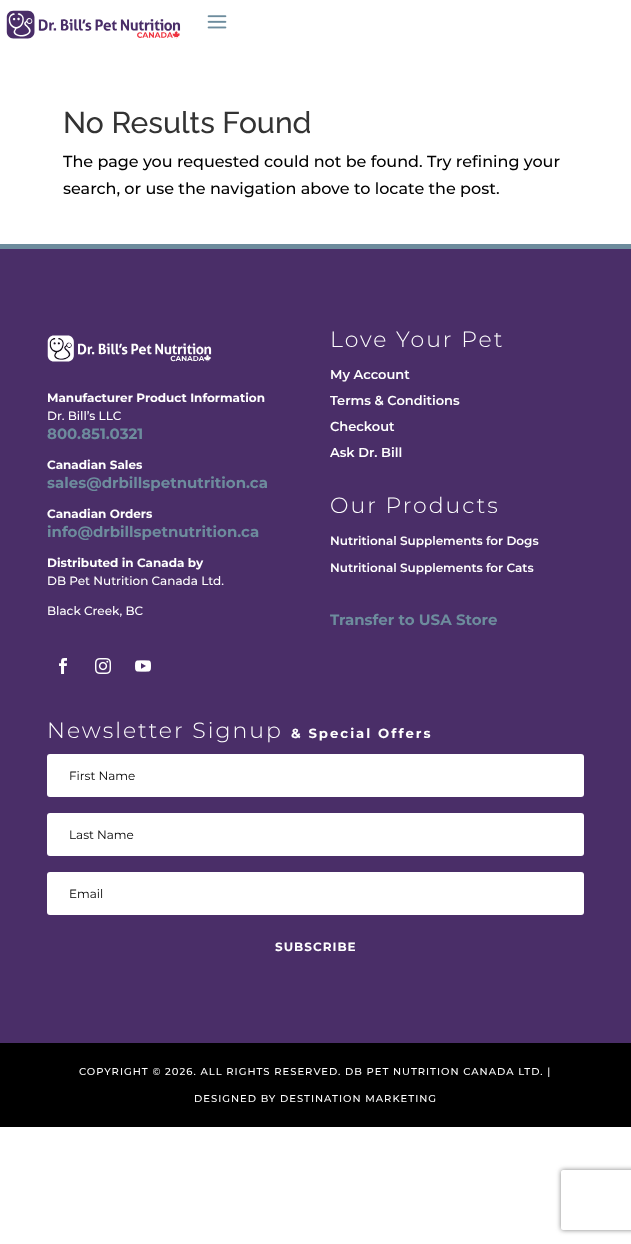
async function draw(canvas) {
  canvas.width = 631
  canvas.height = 1244
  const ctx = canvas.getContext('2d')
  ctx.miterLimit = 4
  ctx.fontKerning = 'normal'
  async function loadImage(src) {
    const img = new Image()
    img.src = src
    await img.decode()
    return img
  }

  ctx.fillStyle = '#fff'
  ctx.fillRect(0, 0, 631, 1244)
  ctx.drawImage(await loadImage('image0.png'), 6, 10, 175, 29)
  ctx.drawImage(await loadImage('image1.png'), 207, 15, 20, 14)
  ctx.font = '500 30px Raleway'
  ctx.fillStyle = '#333'
  ctx.fillText('No Results Found', 63, 133)
  ctx.font = '500 16px Montserrat'
  ctx.fillStyle = '#000'
  ctx.fillText('The page you requested could not be found. Try refining your', 63, 167)
  ctx.fillText('search, or use the navigation above to locate the post.', 63, 194)
  ctx.fillStyle = '#4a2e68'
  ctx.fillRect(0, 249, 631, 794)
  ctx.fillStyle = '#6d8c9d'
  ctx.fillRect(0, 244, 631, 5)
  ctx.drawImage(await loadImage('image2.png'), 47, 335, 165, 27)
  ctx.font = 'bold 12px Montserrat'
  ctx.fillStyle = '#fff'
  ctx.fillText('Manufacturer Product Information', 47, 402)
  ctx.font = '500 12px Montserrat'
  ctx.fillText('Dr. Bill’s LLC', 47, 420)
  ctx.font = 'bold 15px Montserrat'
  ctx.fillStyle = '#6d8c9d'
  ctx.fillText('800.851.0321', 47, 439)
  ctx.font = 'bold 12px Montserrat'
  ctx.fillStyle = '#fff'
  ctx.fillText('Canadian Sales', 47, 469)
  ctx.font = 'bold 15px Montserrat'
  ctx.fillStyle = '#6d8c9d'
  ctx.fillText('sales@drbillspetnutrition.ca', 47, 488)
  ctx.font = 'bold 12px Montserrat'
  ctx.fillStyle = '#fff'
  ctx.fillText('Canadian Orders', 47, 518)
  ctx.font = 'bold 15px Montserrat'
  ctx.fillStyle = '#6d8c9d'
  ctx.fillText('info@drbillspetnutrition.ca', 47, 537)
  ctx.font = 'bold 12px Montserrat'
  ctx.fillStyle = '#fff'
  ctx.fillText('Distributed in Canada by', 47, 567)
  ctx.font = '500 12px Montserrat'
  ctx.fillText('DB Pet Nutrition Canada Ltd.', 47, 585)
  ctx.fillText('Black Creek, BC', 47, 615)
  ctx.drawImage(await loadImage('image3.png'), 59, 658, 8, 16)
  ctx.drawImage(await loadImage('image4.png'), 95, 658, 16, 16)
  ctx.drawImage(await loadImage('image5.png'), 135, 660, 16, 12)
  ctx.letterSpacing = '2px'
  ctx.font = '300 22px Montserrat'
  ctx.fillText('Love Your Pet', 330, 347)
  ctx.letterSpacing = '0px'
  ctx.font = '600 13px Montserrat'
  ctx.fillText('My Account', 330, 379)
  ctx.fillText('Terms & Conditions', 330, 405)
  ctx.fillText('Checkout', 330, 431)
  ctx.fillText('Ask Dr. Bill', 330, 457)
  ctx.letterSpacing = '2px'
  ctx.font = '300 22px Montserrat'
  ctx.fillText('Our Products', 330, 513)
  ctx.letterSpacing = '0px'
  ctx.font = '600 12px Montserrat'
  ctx.fillText('Nutritional Supplements for Dogs', 330, 545)
  ctx.fillText('Nutritional Supplements for Cats', 330, 572)
  ctx.font = 'bold 15px Montserrat'
  ctx.fillStyle = '#6d8c9d'
  ctx.fillText('Transfer to USA Store', 330, 625)
  ctx.letterSpacing = '2px'
  ctx.font = '300 22px Montserrat'
  ctx.fillStyle = '#fff'
  ctx.fillText('Newsletter Signup', 47, 738)
  ctx.font = 'bold 13.25px Montserrat'
  ctx.fillText('& Special Offers', 291, 738)
  ctx.beginPath()
  ctx.roundRect(47, 754, 537, 43, 3)
  ctx.fill()
  ctx.letterSpacing = '0px'
  ctx.font = '12px Montserrat'
  ctx.fillStyle = '#000'
  ctx.fillText('First Name', 69, 780)
  ctx.fillStyle = '#fff'
  ctx.beginPath()
  ctx.roundRect(47, 813, 537, 43, 3)
  ctx.fill()
  ctx.fillStyle = '#000'
  ctx.fillText('Last Name', 69, 839)
  ctx.fillStyle = '#fff'
  ctx.beginPath()
  ctx.roundRect(47, 872, 537, 43, 3)
  ctx.fill()
  ctx.fillStyle = '#000'
  ctx.fillText('Email', 69, 898)
  ctx.letterSpacing = '1px'
  ctx.font = 'bold 12px Montserrat'
  ctx.fillStyle = '#fff'
  ctx.fillText('SUBSCRIBE', 275, 951)
  ctx.fillStyle = '#000'
  ctx.fillRect(0, 1043, 631, 84)
  ctx.font = '500 10px Montserrat'
  ctx.fillStyle = '#fff'
  ctx.fillText('COPYRIGHT © 2026. ALL RIGHTS RESERVED. DB PET NUTRITION CANADA LTD. |', 79, 1075)
  ctx.fillText('DESIGNED BY DESTINATION MARKETING', 194, 1102)
  ctx.save()
  ctx.beginPath()
  ctx.moveTo(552, 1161)
  ctx.lineTo(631, 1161)
  ctx.lineTo(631, 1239)
  ctx.lineTo(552, 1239)
  ctx.closePath()
  ctx.moveTo(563, 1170)
  ctx.lineTo(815, 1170)
  ctx.bezierCurveTo(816, 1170, 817, 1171, 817, 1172)
  ctx.lineTo(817, 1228)
  ctx.bezierCurveTo(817, 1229, 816, 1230, 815, 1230)
  ctx.lineTo(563, 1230)
  ctx.bezierCurveTo(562, 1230, 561, 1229, 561, 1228)
  ctx.lineTo(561, 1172)
  ctx.bezierCurveTo(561, 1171, 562, 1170, 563, 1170)
  ctx.closePath()
  ctx.clip('evenodd')
  ctx.fillStyle = '#808080'
  ctx.filter = 'blur(2.5px)'
  ctx.beginPath()
  ctx.roundRect(561, 1170, 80, 60, 2)
  ctx.fill()
  ctx.filter = 'none'
  ctx.restore()
}

draw(document.querySelector('canvas'))
